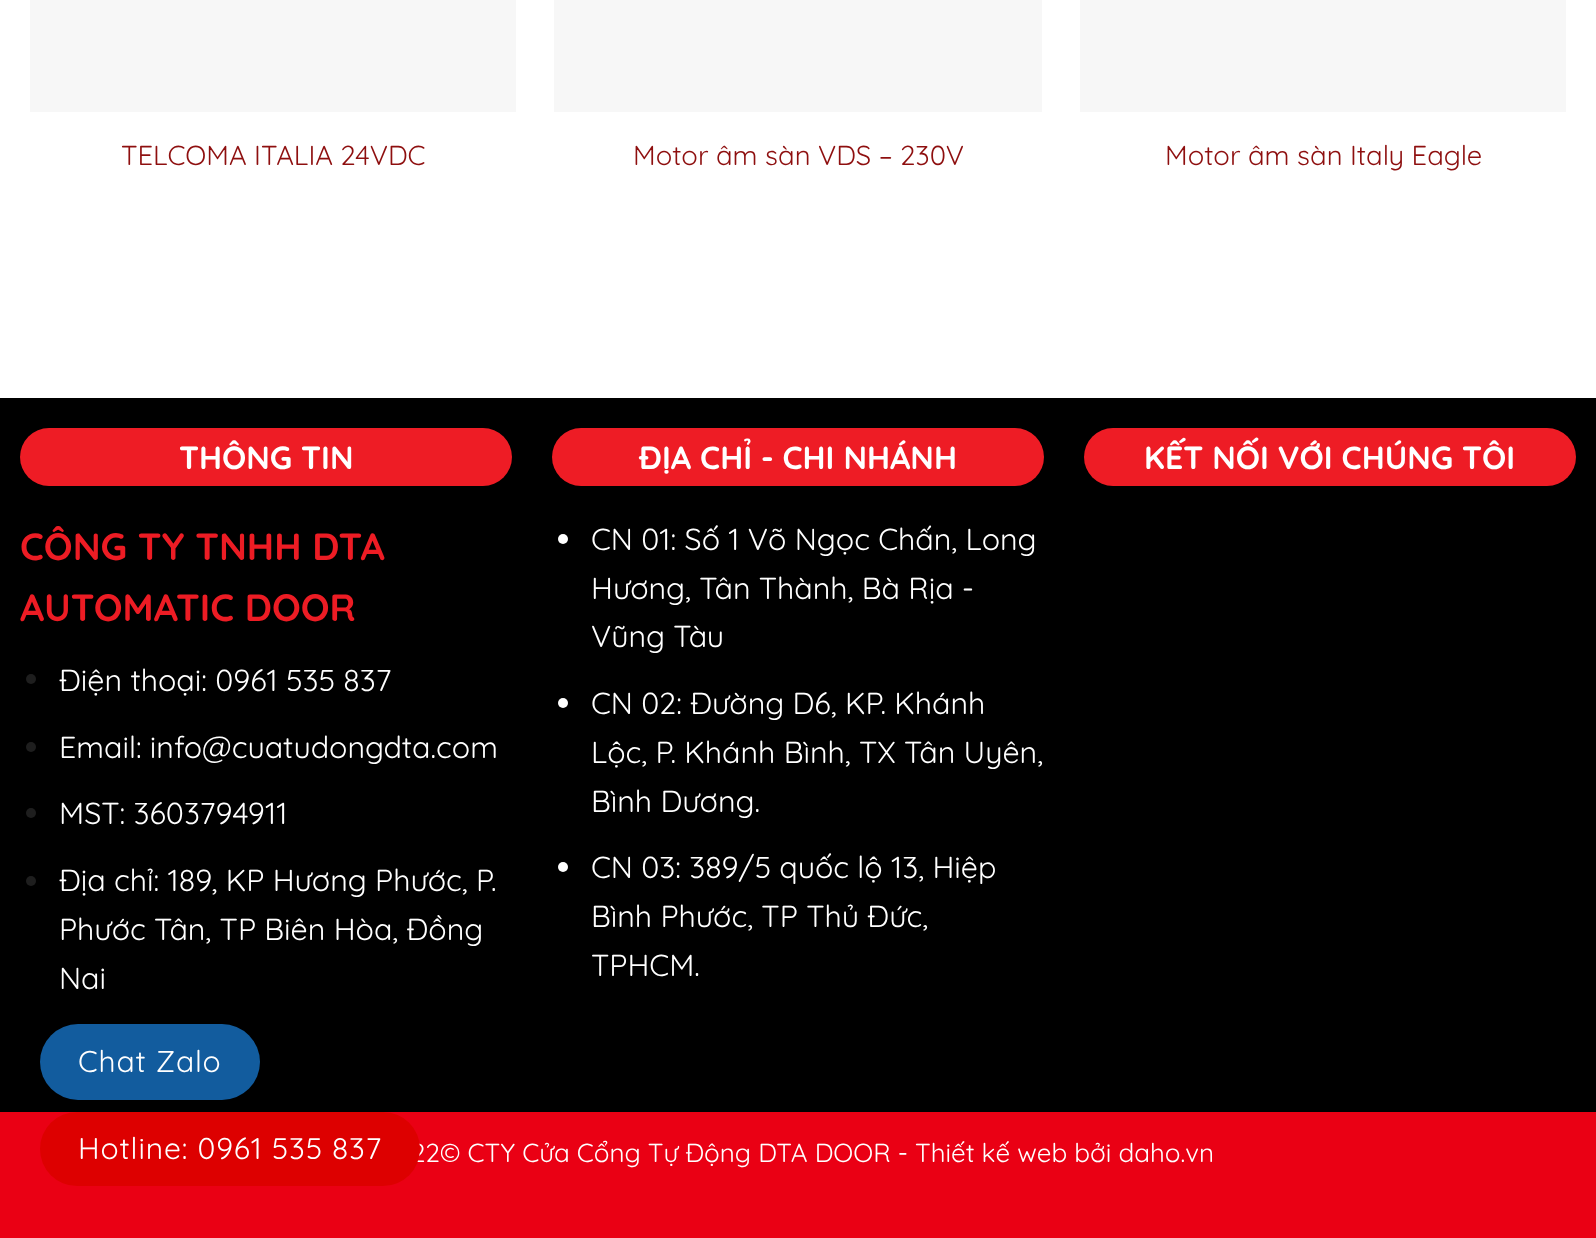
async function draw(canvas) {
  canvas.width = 1596
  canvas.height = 1238
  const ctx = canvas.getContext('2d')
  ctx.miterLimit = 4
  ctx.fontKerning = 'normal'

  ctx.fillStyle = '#fff'
  ctx.fillRect(0, 0, 1596, 1238)
  ctx.fillStyle = '#f7f7f7'
  ctx.fillRect(30, 0, 486, 112)
  ctx.font = '27.4px Quicksand'
  ctx.fillStyle = '#8e0f0f'
  ctx.fillText('TELCOMA ITALIA 24VDC', 121, 165)
  ctx.fillStyle = '#f7f7f7'
  ctx.fillRect(554, 0, 488, 112)
  ctx.fillStyle = '#8e0f0f'
  ctx.fillText('Motor âm sàn VDS – 230V', 633, 165)
  ctx.fillStyle = '#f7f7f7'
  ctx.fillRect(1080, 0, 486, 112)
  ctx.fillStyle = '#8e0f0f'
  ctx.fillText('Motor âm sàn Italy Eagle', 1165, 165)
  ctx.fillStyle = '#000'
  ctx.fillRect(0, 398, 1596, 714)
  ctx.fillStyle = '#ee1c25'
  ctx.beginPath()
  ctx.roundRect(20, 428, 492, 58, 29)
  ctx.fill()
  ctx.font = 'bold 32px Quicksand'
  ctx.fillStyle = '#fff'
  ctx.fillText('THÔNG TIN', 179, 469)
  ctx.font = 'bold 38px Quicksand'
  ctx.fillStyle = '#ed1c24'
  ctx.fillText('CÔNG TY TNHH DTA', 20, 560)
  ctx.fillText('AUTOMATIC DOOR', 20, 621)
  ctx.fillStyle = '#1e1e1e'
  ctx.beginPath()
  ctx.arc(31, 679, 5, 0, 2 * Math.PI)
  ctx.fill()
  ctx.font = '30.4px Quicksand'
  ctx.fillStyle = '#fff'
  ctx.fillText('Điện thoại: 0961 535 837', 59, 691)
  ctx.fillStyle = '#1e1e1e'
  ctx.beginPath()
  ctx.arc(31, 747, 5, 0, 2 * Math.PI)
  ctx.fill()
  ctx.fillStyle = '#fff'
  ctx.fillText('Email: info@cuatudongdta.com', 59, 758)
  ctx.fillStyle = '#1e1e1e'
  ctx.beginPath()
  ctx.arc(31, 813, 5, 0, 2 * Math.PI)
  ctx.fill()
  ctx.fillStyle = '#fff'
  ctx.fillText('MST: 3603794911', 59, 824)
  ctx.fillStyle = '#1e1e1e'
  ctx.beginPath()
  ctx.arc(31, 881, 5, 0, 2 * Math.PI)
  ctx.fill()
  ctx.fillStyle = '#fff'
  ctx.fillText('Địa chỉ: 189, KP Hương Phước, P.', 59, 891)
  ctx.fillText('Phước Tân, TP Biên Hòa, Đồng', 59, 940)
  ctx.fillText('Nai', 59, 989)
  ctx.fillStyle = '#ee1c25'
  ctx.beginPath()
  ctx.roundRect(552, 428, 492, 58, 29)
  ctx.fill()
  ctx.font = 'bold 32px Quicksand'
  ctx.fillStyle = '#fff'
  ctx.fillText('ĐỊA CHỈ - CHI NHÁNH', 639, 469)
  ctx.beginPath()
  ctx.arc(563, 539, 5, 0, 2 * Math.PI)
  ctx.fill()
  ctx.font = '30.4px Quicksand'
  ctx.fillText('CN 01: Số 1 Võ Ngọc Chấn, Long', 591, 550)
  ctx.fillText('Hương, Tân Thành, Bà Rịa -', 591, 599)
  ctx.fillText('Vũng Tàu', 591, 647)
  ctx.beginPath()
  ctx.arc(563, 703, 5, 0, 2 * Math.PI)
  ctx.fill()
  ctx.fillText('CN 02: Đường D6, KP. Khánh', 591, 714)
  ctx.fillText('Lộc, P. Khánh Bình, TX Tân Uyên,', 591, 763)
  ctx.fillText('Bình Dương.', 591, 812)
  ctx.beginPath()
  ctx.arc(563, 867, 5, 0, 2 * Math.PI)
  ctx.fill()
  ctx.fillText('CN 03: 389/5 quốc lộ 13, Hiệp', 591, 878)
  ctx.fillText('Bình Phước, TP Thủ Đức,', 591, 927)
  ctx.fillText('TPHCM.', 591, 976)
  ctx.fillStyle = '#ee1c25'
  ctx.beginPath()
  ctx.roundRect(1084, 428, 492, 58, 29)
  ctx.fill()
  ctx.font = 'bold 32px Quicksand'
  ctx.fillStyle = '#fff'
  ctx.fillText('KẾT NỐI VỚI CHÚNG TÔI', 1144, 469)
  ctx.fillStyle = '#ea0014'
  ctx.fillRect(0, 1112, 1596, 126)
  ctx.font = '26px Quicksand'
  ctx.fillStyle = '#fff'
  ctx.fillText('22© CTY Cửa Cổng Tự Động DTA DOOR - Thiết kế web bởi daho.vn', 411, 1162)
  ctx.fillStyle = '#125c9e'
  ctx.beginPath()
  ctx.roundRect(40, 1024, 220, 76, 38)
  ctx.fill()
  ctx.letterSpacing = '0.9px'
  ctx.font = '30px Quicksand'
  ctx.fillStyle = '#fff'
  ctx.fillText('Chat Zalo', 78, 1072)
  ctx.fillStyle = '#d00'
  ctx.beginPath()
  ctx.roundRect(40, 1112, 380, 74, 37)
  ctx.fill()
  ctx.fillStyle = '#fff'
  ctx.fillText('Hotline: 0961 535 837', 78, 1159)
}

draw(document.querySelector('canvas'))
